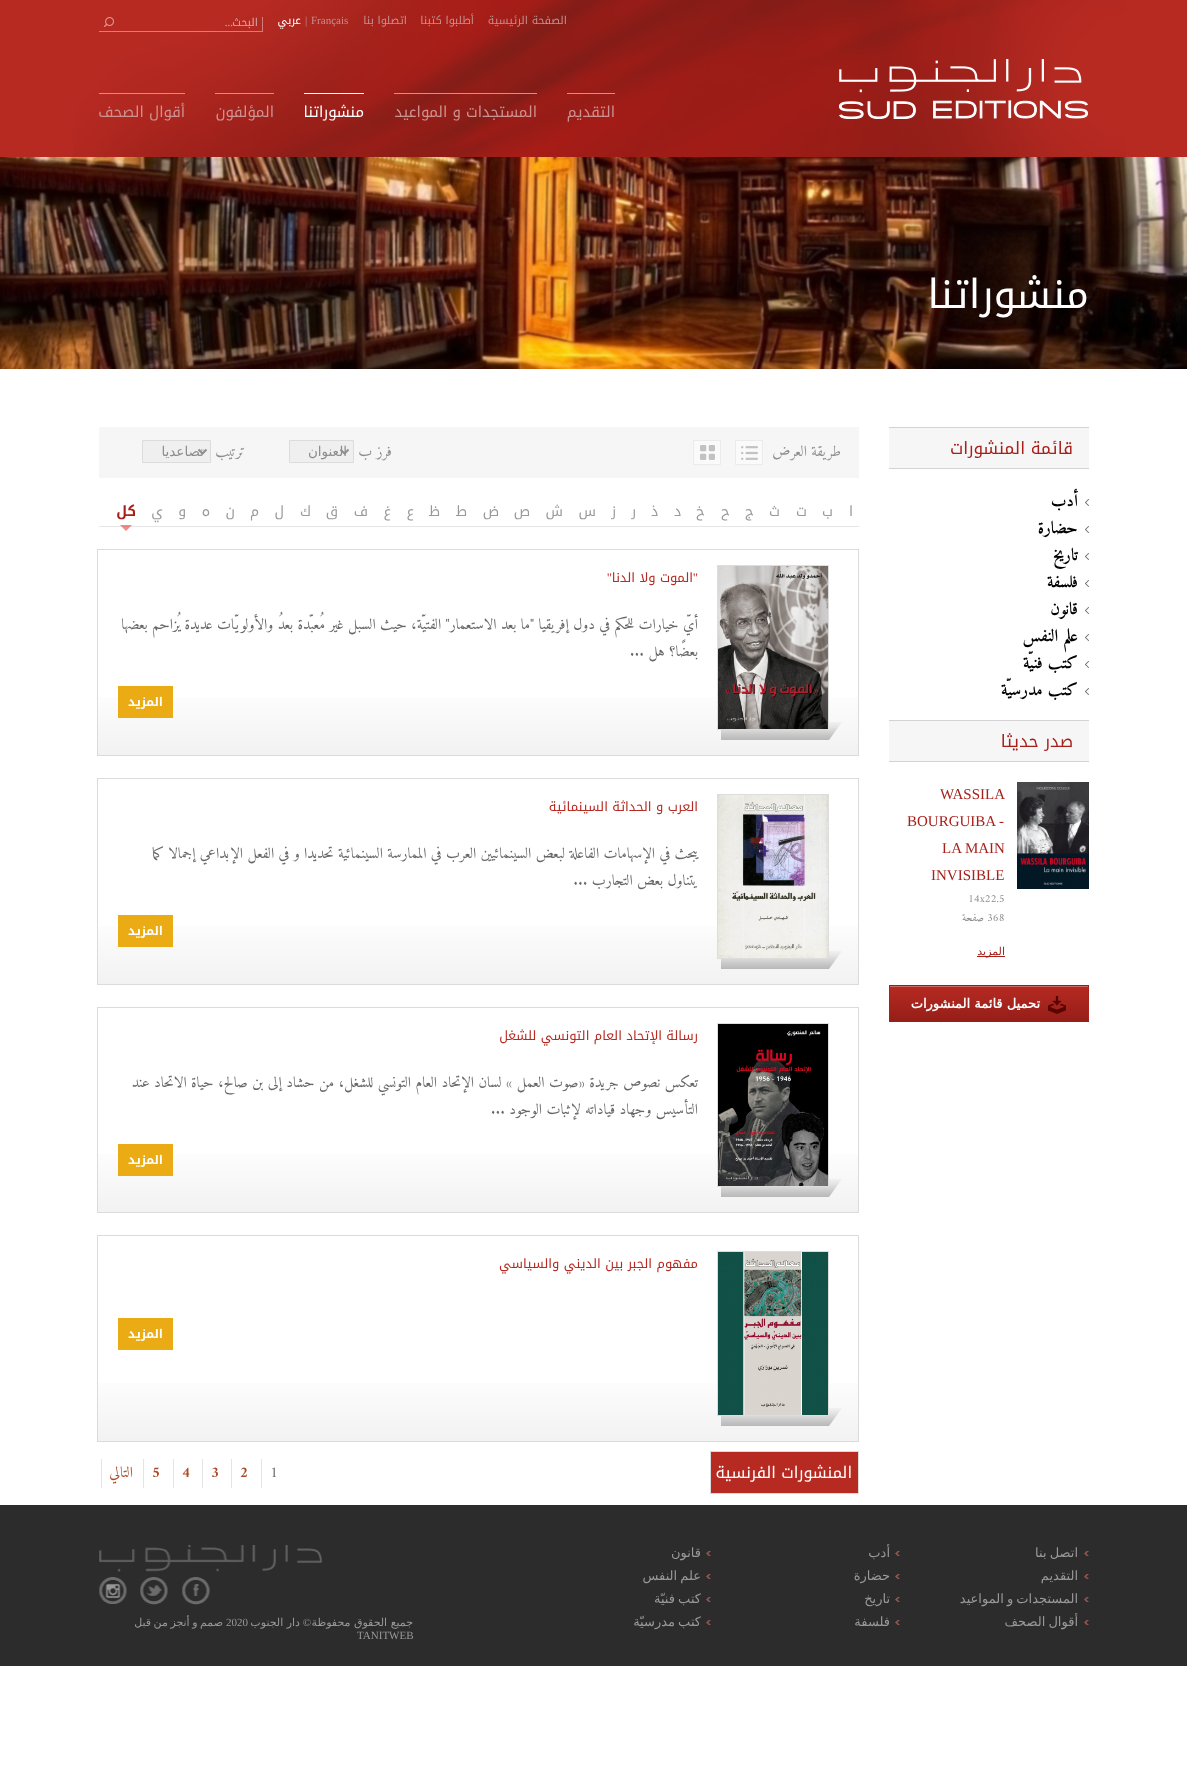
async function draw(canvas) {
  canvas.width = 1187
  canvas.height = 1783
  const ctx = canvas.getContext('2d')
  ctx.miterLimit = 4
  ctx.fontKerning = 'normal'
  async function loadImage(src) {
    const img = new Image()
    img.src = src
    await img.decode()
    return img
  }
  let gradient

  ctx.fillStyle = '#fff'
  ctx.fillRect(0, 0, 1187, 1783)
  ctx.fillStyle = '#b72a22'
  ctx.fillRect(0, 0, 1187, 157)
  ctx.drawImage(await loadImage('image0.png'), 73, 0, 1053, 157)
  ctx.direction = 'rtl'
  ctx.font = '11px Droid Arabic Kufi'
  ctx.fillStyle = '#c68f8f'
  ctx.fillText('الصفحة الرئيسية', 567, 24)
  ctx.fillText('أطلبوا كتبنا', 474, 24)
  ctx.fillText('اتصلوا بنا', 407, 24)
  ctx.direction = 'ltr'
  ctx.font = '11px Liberation Serif'
  ctx.fillText('Français', 311, 24)
  ctx.fillText('|', 305, 24)
  ctx.direction = 'rtl'
  ctx.font = '11px Droid Arabic Kufi'
  ctx.fillStyle = '#fff'
  ctx.fillText('عربي', 301, 24)
  ctx.drawImage(await loadImage('image1.png'), 99, 17, 164, 15)
  ctx.fillStyle = '#d5abab'
  ctx.fillText('البحث', 258, 26)
  ctx.font = '11px Liberation Serif'
  ctx.fillText('...', 233, 26)
  ctx.drawImage(await loadImage('image2.png'), 839, 59, 249, 60)
  ctx.fillStyle = '#cd9290'
  ctx.fillRect(567, 93, 48, 1)
  ctx.font = '15px Droid Arabic Kufi'
  ctx.fillText('التقديم', 615, 117)
  ctx.fillRect(394, 93, 143, 1)
  ctx.fillText('المستجدات و المواعيد', 537, 117)
  ctx.fillStyle = '#fff'
  ctx.fillRect(304, 93, 60, 1)
  ctx.fillText('منشوراتنا', 364, 117)
  ctx.fillStyle = '#cd9290'
  ctx.fillRect(215, 93, 59, 1)
  ctx.fillText('المؤلفون', 274, 117)
  ctx.fillRect(99, 93, 86, 1)
  ctx.fillText('أقوال الصحف', 185, 117)
  ctx.drawImage(await loadImage('image3.png'), 0, 157, 1187, 212)
  ctx.font = '40px Droid Arabic Kufi'
  ctx.fillStyle = '#fff'
  ctx.fillText('منشوراتنا', 1089, 308)
  ctx.fillStyle = '#f6f6f6'
  ctx.fillRect(889, 428, 200, 40)
  ctx.fillStyle = '#d3d3d3'
  ctx.fillRect(889, 427, 200, 1)
  ctx.fillRect(889, 468, 200, 1)
  ctx.font = '17px Droid Arabic Kufi'
  ctx.fillStyle = '#a61f19'
  ctx.fillText('قائمة المنشورات', 1073, 454)
  ctx.drawImage(await loadImage('image4.png'), 1085, 499, 4, 7)
  ctx.font = 'bold 17px Amiri'
  ctx.fillStyle = '#000'
  ctx.fillText('أدب', 1078, 506)
  ctx.drawImage(await loadImage('image4.png'), 1085, 526, 4, 7)
  ctx.fillText('حضارة', 1078, 533)
  ctx.drawImage(await loadImage('image4.png'), 1085, 553, 4, 7)
  ctx.fillText('تاريخ', 1078, 560)
  ctx.drawImage(await loadImage('image4.png'), 1085, 580, 4, 7)
  ctx.fillText('فلسفة', 1078, 587)
  ctx.drawImage(await loadImage('image4.png'), 1085, 607, 4, 7)
  ctx.fillText('قانون', 1078, 614)
  ctx.drawImage(await loadImage('image4.png'), 1085, 634, 4, 7)
  ctx.fillText('علم النفس', 1078, 641)
  ctx.drawImage(await loadImage('image4.png'), 1085, 661, 4, 7)
  ctx.fillText('كتب فنيّة', 1078, 668)
  ctx.drawImage(await loadImage('image4.png'), 1085, 688, 4, 7)
  ctx.fillText('كتب مدرسيّة', 1078, 695)
  ctx.fillStyle = '#f6f6f6'
  ctx.fillRect(889, 721, 200, 40)
  ctx.fillStyle = '#d3d3d3'
  ctx.fillRect(889, 720, 200, 1)
  ctx.fillRect(889, 761, 200, 1)
  ctx.font = '17px Droid Arabic Kufi'
  ctx.fillStyle = '#a61f19'
  ctx.fillText('صدر حديثا', 1073, 747)
  ctx.drawImage(await loadImage('image5.png'), 1017, 782, 72, 107)
  ctx.direction = 'ltr'
  ctx.font = '15px Liberation Serif'
  ctx.fillText('WASSILA', 940, 799)
  ctx.fillText('BOURGUIBA -', 907, 826)
  ctx.fillText('LA MAIN', 942, 853)
  ctx.fillText('INVISIBLE', 931, 880)
  ctx.font = '11px Amiri'
  ctx.fillStyle = '#8e8d8d'
  ctx.fillText('14x22.5', 968, 902)
  ctx.fillText('368', 987, 921)
  ctx.direction = 'rtl'
  ctx.fillText('صفحة', 984, 921)
  ctx.fillStyle = '#a61f19'
  ctx.fillRect(977, 956, 28, 1)
  ctx.font = '11px DejaVu Sans'
  ctx.fillText('المزيد', 1005, 955)
  ctx.fillStyle = '#0000004d'
  ctx.filter = 'blur(0.5px)'
  ctx.beginPath()
  ctx.rect(889, 985, 200, 37)
  ctx.fill()
  ctx.filter = 'none'
  gradient = ctx.createLinearGradient(989, 986, 989, 1021)
  gradient.addColorStop(0, '#b62a22')
  gradient.addColorStop(1, '#961e18')
  ctx.fillStyle = gradient
  ctx.fillRect(890, 987, 198, 34)
  ctx.fillStyle = '#cc6a64'
  ctx.fillRect(890, 986, 198, 1)
  ctx.fillStyle = '#9a1e17'
  ctx.fillRect(889, 985, 200, 1)
  ctx.fillStyle = '#a5231c'
  ctx.fillRect(1088, 985, 1, 37)
  ctx.fillStyle = '#9a1e17'
  ctx.fillRect(889, 1021, 200, 1)
  ctx.fillStyle = '#a5231c'
  ctx.fillRect(889, 985, 1, 37)
  ctx.drawImage(await loadImage('image6.png'), 1048, 996, 18, 18)
  ctx.font = 'bold 13px DejaVu Sans'
  ctx.fillStyle = '#fff'
  ctx.fillText('تحميل قائمة المنشورات', 1040, 1008)
  ctx.fillStyle = '#f6f6f6'
  ctx.fillRect(99, 427, 760, 51)
  ctx.font = '15px Amiri'
  ctx.fillStyle = '#8e8d8d'
  ctx.fillText('طريقة العرض', 841, 456)
  ctx.drawImage(await loadImage('image7.png'), 735, 440, 28, 25)
  ctx.drawImage(await loadImage('image8.png'), 693, 440, 28, 25)
  ctx.fillText('فرز ب', 392, 456)
  ctx.fillStyle = '#efefef'
  ctx.beginPath()
  ctx.rect(289.5, 440.5, 64, 22)
  ctx.fill()
  ctx.strokeStyle = '#dedbdb'
  ctx.stroke()
  ctx.beginPath()
  ctx.moveTo(340.5, 449.5)
  ctx.lineTo(344.5, 453.5)
  ctx.lineTo(348.5, 449.5)
  ctx.strokeStyle = '#8f8f8f'
  ctx.lineWidth = 2
  ctx.stroke()
  ctx.font = '13.5px DejaVu Sans'
  ctx.fillStyle = '#8e8d8d'
  ctx.fillText('العنوان', 347, 456)
  ctx.font = '15px Amiri'
  ctx.fillText('ترتيب', 245, 456)
  ctx.fillStyle = '#efefef'
  ctx.beginPath()
  ctx.rect(142.5, 440.5, 68, 22)
  ctx.fill()
  ctx.strokeStyle = '#dedbdb'
  ctx.lineWidth = 1
  ctx.stroke()
  ctx.beginPath()
  ctx.moveTo(198.5, 449.5)
  ctx.lineTo(202.5, 453.5)
  ctx.lineTo(206.5, 449.5)
  ctx.strokeStyle = '#8f8f8f'
  ctx.lineWidth = 2
  ctx.stroke()
  ctx.font = '13.5px DejaVu Sans'
  ctx.fillStyle = '#8e8d8d'
  ctx.fillText('تصاعديا', 204, 456)
  ctx.fillStyle = '#e5e5e5'
  ctx.fillRect(99, 526, 760, 1)
  ctx.font = '14px Droid Arabic Kufi'
  ctx.fillStyle = '#999'
  ctx.fillText('ا', 853, 516)
  ctx.fillText('ب', 833, 516)
  ctx.fillText('ت', 807, 516)
  ctx.fillText('ث', 780, 516)
  ctx.fillText('ج', 754, 516)
  ctx.fillText('ح', 730, 516)
  ctx.fillText('خ', 705, 516)
  ctx.fillText('د', 681, 516)
  ctx.fillText('ذ', 658, 516)
  ctx.fillText('ر', 636, 516)
  ctx.fillText('ز', 616, 516)
  ctx.fillText('س', 596, 516)
  ctx.fillText('ش', 563, 516)
  ctx.fillText('ص', 530, 516)
  ctx.fillText('ض', 499, 516)
  ctx.fillText('ط', 467, 516)
  ctx.fillText('ظ', 440, 516)
  ctx.fillText('ع', 414, 516)
  ctx.fillText('غ', 391, 516)
  ctx.fillText('ف', 368, 516)
  ctx.fillText('ق', 338, 516)
  ctx.fillText('ك', 311, 516)
  ctx.fillText('ل', 284, 516)
  ctx.fillText('م', 259, 516)
  ctx.fillText('ن', 235, 516)
  ctx.fillText('ه', 210, 516)
  ctx.fillText('و', 186, 516)
  ctx.fillText('ي', 163, 516)
  ctx.font = 'bold 14px Droid Arabic Kufi'
  ctx.fillStyle = '#a61f19'
  ctx.fillText('كل', 136, 516)
  ctx.drawImage(await loadImage('image9.png'), 120, 525, 12, 6)
  gradient = ctx.createLinearGradient(478, 550, 478, 755)
  gradient.addColorStop(0.65, '#fff')
  gradient.addColorStop(1, '#f2f2f2')
  ctx.fillStyle = gradient
  ctx.fillRect(98, 697, 760, 58)
  ctx.strokeStyle = '#dbdbdb'
  ctx.lineWidth = 1
  ctx.strokeRect(97.5, 549.5, 761, 206)
  ctx.drawImage(await loadImage('image10.png'), 721, 722, 121, 18)
  ctx.strokeStyle = '#ddd'
  ctx.strokeRect(717.5, 565.5, 111, 164)
  ctx.drawImage(await loadImage('image11.png'), 718, 566, 110, 163)
  ctx.font = '13px Liberation Serif'
  ctx.fillStyle = '#b72a22'
  ctx.fillText('"', 698, 582)
  ctx.font = '13px Droid Arabic Kufi'
  ctx.fillText('الموت ولا الدنا', 693, 582)
  ctx.font = '13px Liberation Serif'
  ctx.fillText('"', 612, 582)
  ctx.font = '15px Amiri'
  ctx.fillStyle = '#666'
  ctx.fillText('أيّ خيارات للحكم في دول إفريقيا "ما بعد الاستعمار" الفتيّة، حيث السبل غير مُعبّدة بعدُ والأولويّات عديدة يُزاحم بعضها', 698, 629)
  ctx.fillText('بعضًا؟ هل ...', 698, 656)
  ctx.fillStyle = '#eaab14'
  ctx.fillRect(118, 686, 55, 32)
  ctx.font = 'bold 12px Droid Arabic Kufi'
  ctx.fillStyle = '#fff'
  ctx.fillText('المزيد', 163, 706)
  gradient = ctx.createLinearGradient(478, 779, 478, 984)
  gradient.addColorStop(0.65, '#fff')
  gradient.addColorStop(1, '#f2f2f2')
  ctx.fillStyle = gradient
  ctx.fillRect(98, 926, 760, 58)
  ctx.strokeStyle = '#dbdbdb'
  ctx.strokeRect(97.5, 778.5, 761, 206)
  ctx.drawImage(await loadImage('image10.png'), 721, 951, 121, 18)
  ctx.strokeStyle = '#ddd'
  ctx.strokeRect(717.5, 794.5, 111, 164)
  ctx.drawImage(await loadImage('image12.png'), 718, 795, 110, 163)
  ctx.font = '13px Droid Arabic Kufi'
  ctx.fillStyle = '#b72a22'
  ctx.fillText('العرب و الحداثة السينمائية', 698, 811)
  ctx.font = '15px Amiri'
  ctx.fillStyle = '#666'
  ctx.fillText('يبحث في الإسهامات الفاعلة لبعض السينمائيين العرب في الممارسة السينمائية تحديدا و في الفعل الإبداعي إجمالا كما', 698, 858)
  ctx.fillText('يتناول بعض التجارب ...', 698, 885)
  ctx.fillStyle = '#eaab14'
  ctx.fillRect(118, 915, 55, 32)
  ctx.font = 'bold 12px Droid Arabic Kufi'
  ctx.fillStyle = '#fff'
  ctx.fillText('المزيد', 163, 935)
  gradient = ctx.createLinearGradient(478, 1008, 478, 1212)
  gradient.addColorStop(0.65, '#fff')
  gradient.addColorStop(1, '#f2f2f2')
  ctx.fillStyle = gradient
  ctx.fillRect(98, 1154, 760, 58)
  ctx.strokeStyle = '#dbdbdb'
  ctx.strokeRect(97.5, 1007.5, 761, 205)
  ctx.drawImage(await loadImage('image10.png'), 721, 1179, 121, 18)
  ctx.strokeStyle = '#ddd'
  ctx.strokeRect(717.5, 1023.5, 111, 163)
  ctx.drawImage(await loadImage('image13.png'), 718, 1024, 110, 162)
  ctx.font = '13px Droid Arabic Kufi'
  ctx.fillStyle = '#b72a22'
  ctx.fillText('رسالة الإتحاد العام التونسي للشغل', 698, 1040)
  ctx.font = '15px Amiri'
  ctx.fillStyle = '#666'
  ctx.fillText('تعكس نصوص جريدة «صوت العمل » لسان الإتحاد العام التونسي للشغل، من حشاد إلى بن صالح، حياة الاتحاد عند', 698, 1087)
  ctx.fillText('التأسيس وجهاد قياداته لإثبات الوجود ...', 698, 1114)
  ctx.fillStyle = '#eaab14'
  ctx.fillRect(118, 1144, 55, 32)
  ctx.font = 'bold 12px Droid Arabic Kufi'
  ctx.fillStyle = '#fff'
  ctx.fillText('المزيد', 163, 1164)
  gradient = ctx.createLinearGradient(478, 1236, 478, 1441)
  gradient.addColorStop(0.65, '#fff')
  gradient.addColorStop(1, '#f2f2f2')
  ctx.fillStyle = gradient
  ctx.fillRect(98, 1383, 760, 58)
  ctx.strokeStyle = '#dbdbdb'
  ctx.strokeRect(97.5, 1235.5, 761, 206)
  ctx.drawImage(await loadImage('image10.png'), 721, 1408, 121, 18)
  ctx.strokeStyle = '#ddd'
  ctx.strokeRect(717.5, 1251.5, 111, 164)
  ctx.drawImage(await loadImage('image14.png'), 718, 1252, 110, 163)
  ctx.font = '13px Droid Arabic Kufi'
  ctx.fillStyle = '#b72a22'
  ctx.fillText('مفهوم الجبر بين الديني والسياسي', 698, 1268)
  ctx.fillStyle = '#eaab14'
  ctx.fillRect(118, 1318, 55, 32)
  ctx.font = 'bold 12px Droid Arabic Kufi'
  ctx.fillStyle = '#fff'
  ctx.fillText('المزيد', 163, 1338)
  ctx.fillStyle = '#b72a22'
  ctx.beginPath()
  ctx.rect(710.5, 1451.5, 148, 42)
  ctx.fill()
  ctx.strokeStyle = '#dbdbdb'
  ctx.stroke()
  ctx.font = '16px Droid Arabic Kufi'
  ctx.fillStyle = '#fff'
  ctx.fillText('المنشورات الفرنسية', 852, 1478)
  ctx.fillStyle = '#e4e4e4'
  ctx.fillRect(261, 1459, 1, 29)
  ctx.direction = 'ltr'
  ctx.font = '15px Amiri'
  ctx.fillStyle = '#666'
  ctx.fillText('1', 270, 1477)
  ctx.fillStyle = '#e4e4e4'
  ctx.fillRect(231, 1459, 1, 29)
  ctx.font = 'bold 15px Amiri'
  ctx.fillStyle = '#ac4a28'
  ctx.fillText('2', 240, 1477)
  ctx.fillStyle = '#e4e4e4'
  ctx.fillRect(202, 1459, 1, 29)
  ctx.fillStyle = '#ac4a28'
  ctx.fillText('3', 211, 1477)
  ctx.fillStyle = '#e4e4e4'
  ctx.fillRect(173, 1459, 1, 29)
  ctx.fillStyle = '#ac4a28'
  ctx.fillText('4', 182, 1477)
  ctx.fillStyle = '#e4e4e4'
  ctx.fillRect(143, 1459, 1, 29)
  ctx.fillStyle = '#ac4a28'
  ctx.fillText('5', 152, 1477)
  ctx.fillStyle = '#e4e4e4'
  ctx.fillRect(101, 1459, 1, 29)
  ctx.direction = 'rtl'
  ctx.font = '15px Amiri'
  ctx.fillStyle = '#ac4a28'
  ctx.fillText('التالي', 133, 1477)
  ctx.fillStyle = '#2d2c2c'
  ctx.fillRect(0, 1505, 1187, 161)
  ctx.drawImage(await loadImage('image15.png'), 1084, 1551, 5, 5)
  ctx.wordSpacing = '-1px'
  ctx.font = '13px DejaVu Sans'
  ctx.fillStyle = '#999'
  ctx.fillText('اتصل بنا', 1078, 1557)
  ctx.drawImage(await loadImage('image15.png'), 1084, 1574, 5, 5)
  ctx.wordSpacing = '0px'
  ctx.fillText('التقديم', 1078, 1580)
  ctx.drawImage(await loadImage('image15.png'), 1084, 1597, 5, 5)
  ctx.wordSpacing = '-1px'
  ctx.fillText('المستجدات و المواعيد', 1078, 1603)
  ctx.drawImage(await loadImage('image15.png'), 1084, 1620, 5, 5)
  ctx.fillText('أقوال الصحف', 1078, 1626)
  ctx.drawImage(await loadImage('image15.png'), 895, 1551, 5, 5)
  ctx.wordSpacing = '0px'
  ctx.fillText('أدب', 890, 1557)
  ctx.drawImage(await loadImage('image15.png'), 895, 1574, 5, 5)
  ctx.fillText('حضارة', 890, 1580)
  ctx.drawImage(await loadImage('image15.png'), 895, 1597, 5, 5)
  ctx.fillText('تاريخ', 890, 1603)
  ctx.drawImage(await loadImage('image15.png'), 895, 1620, 5, 5)
  ctx.fillText('فلسفة', 890, 1626)
  ctx.drawImage(await loadImage('image15.png'), 706, 1551, 5, 5)
  ctx.fillText('قانون', 701, 1557)
  ctx.drawImage(await loadImage('image15.png'), 706, 1574, 5, 5)
  ctx.wordSpacing = '-1px'
  ctx.fillText('علم النفس', 701, 1580)
  ctx.drawImage(await loadImage('image15.png'), 706, 1597, 5, 5)
  ctx.fillText('كتب فنيّة', 701, 1603)
  ctx.drawImage(await loadImage('image15.png'), 706, 1620, 5, 5)
  ctx.fillText('كتب مدرسيّة', 701, 1626)
  ctx.drawImage(await loadImage('image16.png'), 99, 1545, 224, 27)
  ctx.drawImage(await loadImage('image17.png'), 182, 1577, 28, 28)
  ctx.drawImage(await loadImage('image18.png'), 140, 1577, 28, 28)
  ctx.drawImage(await loadImage('image19.png'), 99, 1577, 28, 27)
  ctx.wordSpacing = '0px'
  ctx.font = '11px DejaVu Sans'
  ctx.fillText('جميع الحقوق محفوظة', 413, 1626)
  ctx.font = '11px Liberation Serif'
  ctx.fillText('©', 311, 1626)
  ctx.font = '11px DejaVu Sans'
  ctx.fillText('دار الجنوب', 300, 1626)
  ctx.direction = 'ltr'
  ctx.font = '11px Liberation Serif'
  ctx.fillText('2020', 226, 1626)
  ctx.wordSpacing = '-1px'
  ctx.direction = 'rtl'
  ctx.font = '11px DejaVu Sans'
  ctx.fillText('صمم و أنجز من قبل', 223, 1626)
  ctx.wordSpacing = '0px'
  ctx.direction = 'ltr'
  ctx.font = '11px Liberation Serif'
  ctx.fillText('TANITWEB', 357, 1639)
}

draw(document.querySelector('canvas'))
